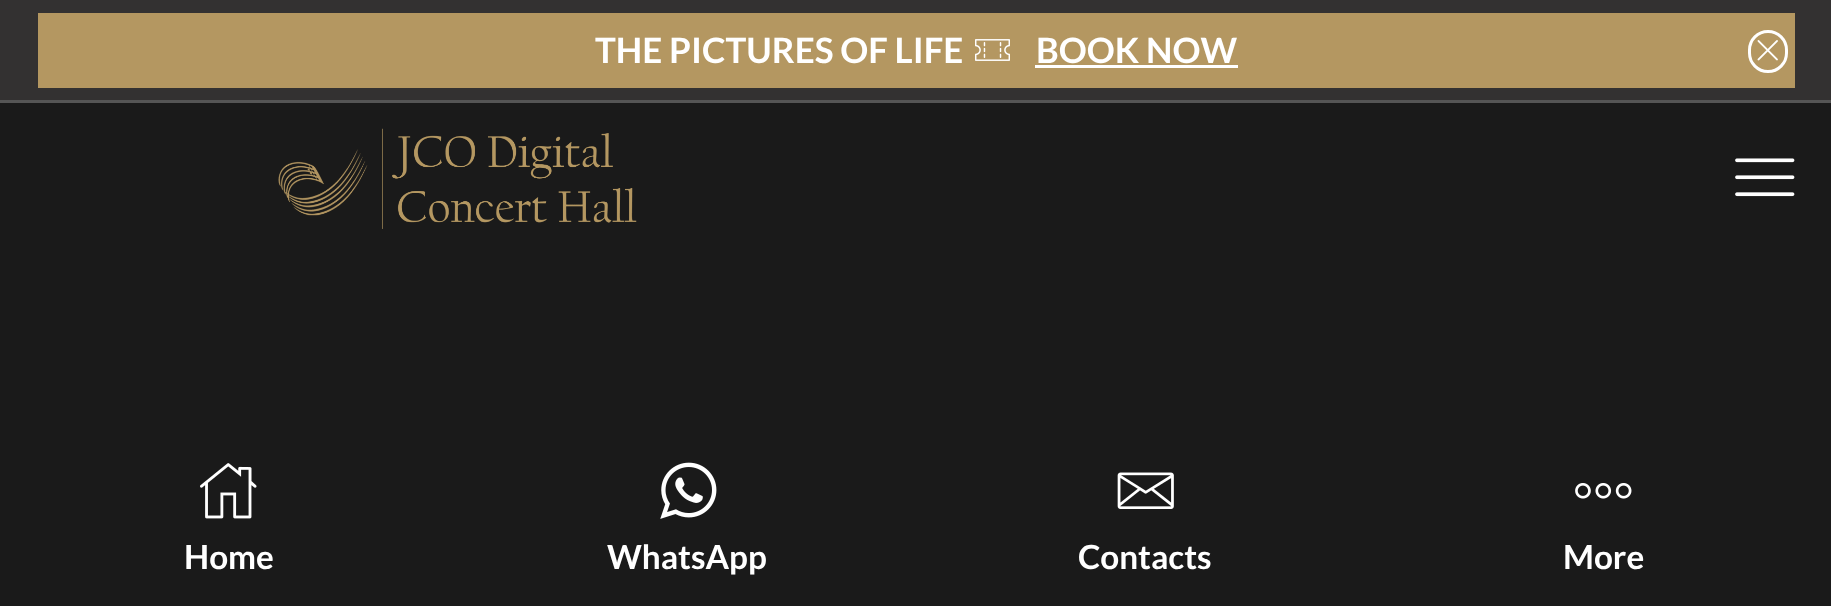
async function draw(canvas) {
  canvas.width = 1831
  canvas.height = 606
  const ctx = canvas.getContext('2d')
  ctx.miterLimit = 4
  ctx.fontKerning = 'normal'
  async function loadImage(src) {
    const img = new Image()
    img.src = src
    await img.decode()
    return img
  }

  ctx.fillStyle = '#1a1a1a'
  ctx.fillRect(0, 0, 1831, 606)
  ctx.fillStyle = '#333131'
  ctx.fillRect(0, 0, 1831, 100)
  ctx.fillStyle = '#555'
  ctx.fillRect(0, 100, 1831, 3)
  ctx.fillStyle = '#b49761'
  ctx.fillRect(38, 13, 1757, 75)
  ctx.font = 'bold 35px Lato'
  ctx.fillStyle = '#fff'
  ctx.fillText('THE PICTURES OF LIFE', 595, 63)
  ctx.drawImage(await loadImage('image0.png'), 975, 39, 35, 22)
  ctx.fillText('BOOK NOW', 1036, 63)
  ctx.fillRect(1035, 65, 203, 3)
  ctx.beginPath()
  ctx.roundRect(1749.5, 31.5, 37, 40, 18.5)
  ctx.strokeStyle = '#fff'
  ctx.lineWidth = 3
  ctx.stroke()
  ctx.drawImage(await loadImage('image1.png'), 1757, 40, 21, 21)
  ctx.drawImage(await loadImage('image2.png'), 278, 128, 359, 101)
  ctx.drawImage(await loadImage('image3.png'), 1735, 158, 60, 39)
  ctx.drawImage(await loadImage('image4.png'), 200, 463, 57, 56)
  ctx.font = 'bold 33.25px Lato'
  ctx.fillText('Home', 184, 569)
  ctx.drawImage(await loadImage('image5.png'), 660, 462, 57, 57)
  ctx.fillText('WhatsApp', 607, 569)
  ctx.drawImage(await loadImage('image6.png'), 1117, 472, 57, 37)
  ctx.fillText('Contacts', 1078, 569)
  ctx.drawImage(await loadImage('image7.png'), 1575, 483, 57, 16)
  ctx.fillText('More', 1563, 569)
}

draw(document.querySelector('canvas'))
